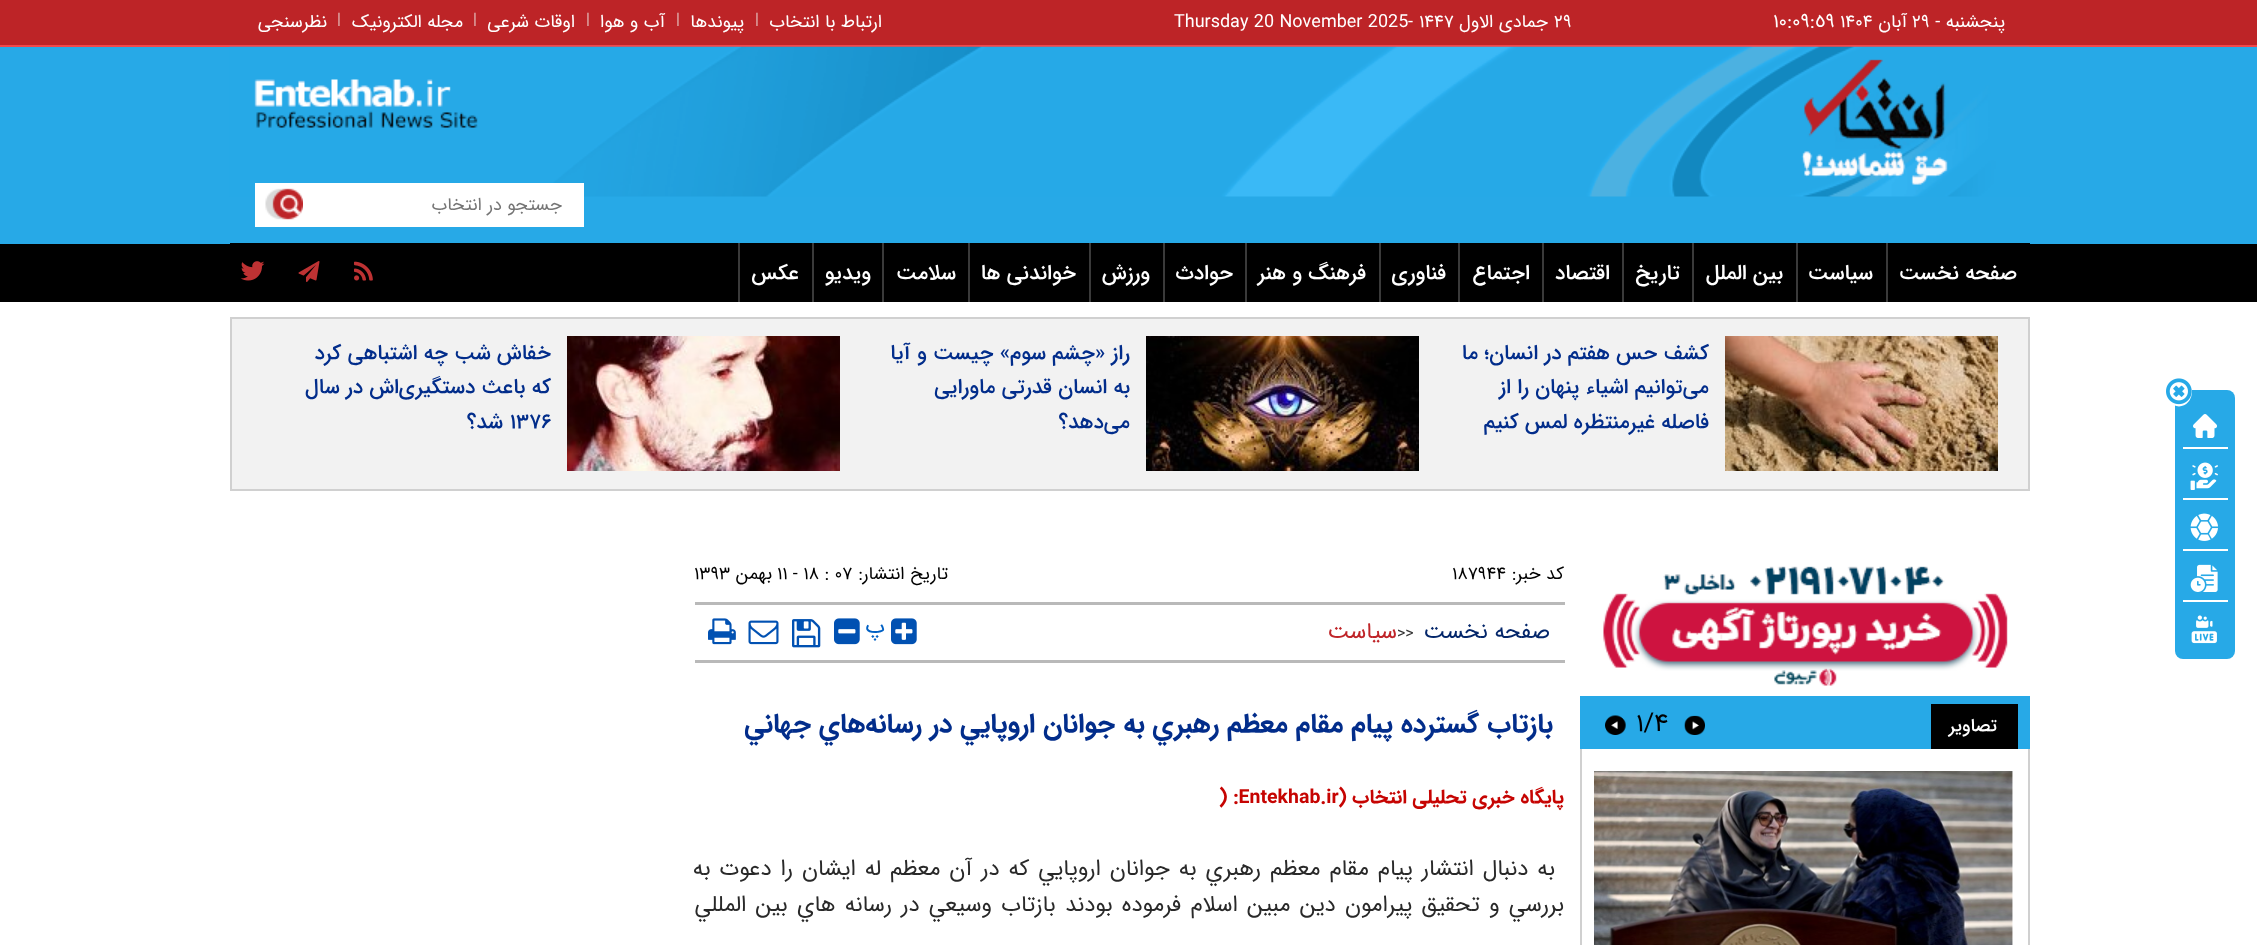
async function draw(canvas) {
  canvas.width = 2257
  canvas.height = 945
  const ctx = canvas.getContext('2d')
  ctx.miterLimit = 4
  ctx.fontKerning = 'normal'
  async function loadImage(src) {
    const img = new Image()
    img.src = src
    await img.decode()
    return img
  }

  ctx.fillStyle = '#fff'
  ctx.fillRect(0, 0, 2257, 945)
  ctx.fillStyle = '#000'
  ctx.fillRect(0, 244, 2257, 58)
  ctx.fillStyle = '#bd2427'
  ctx.fillRect(0, 0, 2257, 45)
  ctx.fillStyle = '#f1474a'
  ctx.fillRect(0, 45, 2257, 2)
  ctx.direction = 'rtl'
  ctx.font = '18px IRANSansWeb'
  ctx.fillStyle = '#fff'
  ctx.fillText('پنجشنبه -', 2005, 27)
  ctx.direction = 'ltr'
  ctx.fillText('۲۹', 1912, 27)
  ctx.direction = 'rtl'
  ctx.fillText('آبان', 1907, 27)
  ctx.direction = 'ltr'
  ctx.fillText('۱۴۰۴', 1840, 27)
  ctx.font = '19.5px IRANSansWeb'
  ctx.fillText('١٠:٠٩:٥٩', 1773, 27)
  ctx.font = '18px IRANSansWeb'
  ctx.fillText('۲۹', 1554, 27)
  ctx.direction = 'rtl'
  ctx.fillText('جمادی الاول', 1548, 27)
  ctx.direction = 'ltr'
  ctx.fillText('۱۴۴۷', 1419, 27)
  ctx.fillText('-', 1408, 27)
  ctx.fillText('Thursday 20 November 2025', 1174, 27)
  ctx.direction = 'rtl'
  ctx.fillText('ارتباط با انتخاب', 882, 27)
  ctx.direction = 'ltr'
  ctx.font = '16px IRANSansWeb'
  ctx.fillStyle = '#e4bebb'
  ctx.fillText('|', 755, 24)
  ctx.direction = 'rtl'
  ctx.font = '18px IRANSansWeb'
  ctx.fillStyle = '#fff'
  ctx.fillText('پیوندها', 744, 27)
  ctx.direction = 'ltr'
  ctx.font = '16px IRANSansWeb'
  ctx.fillStyle = '#e4bebb'
  ctx.fillText('|', 676, 24)
  ctx.direction = 'rtl'
  ctx.font = '18px IRANSansWeb'
  ctx.fillStyle = '#fff'
  ctx.fillText('آب و هوا', 665, 27)
  ctx.direction = 'ltr'
  ctx.font = '16px IRANSansWeb'
  ctx.fillStyle = '#e4bebb'
  ctx.fillText('|', 586, 24)
  ctx.direction = 'rtl'
  ctx.font = '18px IRANSansWeb'
  ctx.fillStyle = '#fff'
  ctx.fillText('اوقات شرعی', 575, 27)
  ctx.direction = 'ltr'
  ctx.font = '16px IRANSansWeb'
  ctx.fillStyle = '#e4bebb'
  ctx.fillText('|', 473, 24)
  ctx.direction = 'rtl'
  ctx.font = '18px IRANSansWeb'
  ctx.fillStyle = '#fff'
  ctx.fillText('مجله الکترونیک', 463, 27)
  ctx.direction = 'ltr'
  ctx.font = '16px IRANSansWeb'
  ctx.fillStyle = '#e4bebb'
  ctx.fillText('|', 337, 24)
  ctx.direction = 'rtl'
  ctx.font = '18px IRANSansWeb'
  ctx.fillStyle = '#fff'
  ctx.fillText('نظرسنجی', 327, 27)
  ctx.fillStyle = '#27a9e7'
  ctx.fillRect(0, 47, 2257, 197)
  ctx.drawImage(await loadImage('image0.png'), 229, 46, 1801, 151)
  ctx.fillStyle = '#fff'
  ctx.fillRect(255, 183, 329, 44)
  ctx.fillStyle = '#757575'
  ctx.fillText('جستجو در انتخاب', 562, 210)
  ctx.drawImage(await loadImage('image1.png'), 265, 188, 38, 32)
  ctx.fillStyle = '#000'
  ctx.fillRect(230, 243, 1800, 1)
  ctx.fillStyle = '#3a3a3a'
  ctx.fillRect(1886, 243, 2, 59)
  ctx.font = '500 21px IRANSansWeb'
  ctx.fillStyle = '#fff'
  ctx.fillText('صفحه نخست', 2017, 279)
  ctx.fillStyle = '#3a3a3a'
  ctx.fillRect(1796, 243, 2, 59)
  ctx.fillStyle = '#fff'
  ctx.fillText('سیاست', 1873, 279)
  ctx.fillStyle = '#3a3a3a'
  ctx.fillRect(1692, 243, 2, 59)
  ctx.fillStyle = '#fff'
  ctx.fillText('بین الملل', 1783, 279)
  ctx.fillStyle = '#3a3a3a'
  ctx.fillRect(1622, 243, 2, 59)
  ctx.fillStyle = '#fff'
  ctx.fillText('تاریخ', 1680, 279)
  ctx.fillStyle = '#3a3a3a'
  ctx.fillRect(1542, 243, 2, 59)
  ctx.fillStyle = '#fff'
  ctx.fillText('اقتصاد', 1610, 279)
  ctx.fillStyle = '#3a3a3a'
  ctx.fillRect(1458, 243, 2, 59)
  ctx.fillStyle = '#fff'
  ctx.fillText('اجتماع', 1530, 279)
  ctx.fillStyle = '#3a3a3a'
  ctx.fillRect(1379, 243, 2, 59)
  ctx.fillStyle = '#fff'
  ctx.fillText('فناوری', 1446, 279)
  ctx.fillStyle = '#3a3a3a'
  ctx.fillRect(1245, 243, 2, 59)
  ctx.fillStyle = '#fff'
  ctx.fillText('فرهنگ و هنر', 1366, 279)
  ctx.fillStyle = '#3a3a3a'
  ctx.fillRect(1163, 243, 2, 59)
  ctx.fillStyle = '#fff'
  ctx.fillText('حوادث', 1233, 279)
  ctx.fillStyle = '#3a3a3a'
  ctx.fillRect(1089, 243, 2, 59)
  ctx.fillStyle = '#fff'
  ctx.fillText('ورزش', 1150, 279)
  ctx.fillStyle = '#3a3a3a'
  ctx.fillRect(968, 243, 2, 59)
  ctx.fillStyle = '#fff'
  ctx.fillText('خواندنی ها', 1076, 279)
  ctx.fillStyle = '#3a3a3a'
  ctx.fillRect(882, 243, 2, 59)
  ctx.fillStyle = '#fff'
  ctx.fillText('سلامت', 956, 279)
  ctx.fillStyle = '#3a3a3a'
  ctx.fillRect(812, 243, 2, 59)
  ctx.fillStyle = '#fff'
  ctx.fillText('ویدیو', 871, 279)
  ctx.fillStyle = '#3a3a3a'
  ctx.fillRect(738, 243, 2, 59)
  ctx.fillStyle = '#fff'
  ctx.fillText('عکس', 799, 279)
  ctx.drawImage(await loadImage('image2.png'), 354, 261, 19, 20)
  ctx.drawImage(await loadImage('image3.png'), 298, 261, 22, 21)
  ctx.drawImage(await loadImage('image4.png'), 240, 261, 25, 20)
  ctx.fillStyle = '#27a9e7'
  ctx.beginPath()
  ctx.roundRect(2175, 390, 60, 269, 8)
  ctx.fill()
  ctx.fillStyle = '#fff'
  ctx.beginPath()
  ctx.ellipse(2179, 391.5, 13, 15, 0, 0, 2 * Math.PI)
  ctx.fill()
  ctx.drawImage(await loadImage('image5.png'), 2166, 378, 26, 27)
  ctx.drawImage(await loadImage('image6.png'), 2193, 414, 24, 24)
  ctx.fillRect(2183, 447, 45, 2)
  ctx.drawImage(await loadImage('image7.png'), 2190, 462, 28, 28)
  ctx.fillRect(2183, 498, 45, 2)
  ctx.drawImage(await loadImage('image8.png'), 2190, 513, 28, 28)
  ctx.fillRect(2183, 549, 45, 2)
  ctx.drawImage(await loadImage('image9.png'), 2190, 564, 28, 28)
  ctx.fillRect(2183, 600, 45, 2)
  ctx.drawImage(await loadImage('image10.png'), 2191, 615, 26, 29)
  ctx.fillStyle = '#f2f2f2'
  ctx.beginPath()
  ctx.rect(231, 318, 1798, 172)
  ctx.fill()
  ctx.strokeStyle = '#d0d0d0'
  ctx.lineWidth = 2
  ctx.stroke()
  ctx.drawImage(await loadImage('image11.png'), 1725, 336, 273, 135)
  ctx.fillStyle = '#022d8b'
  ctx.fillText('کشف حس هفتم در انسان؛ ما', 1709, 359)
  ctx.fillText('می‌توانیم اشیاء پنهان را از', 1709, 393)
  ctx.fillText('فاصله غیرمنتظره لمس کنیم', 1709, 428)
  ctx.drawImage(await loadImage('image12.png'), 1146, 336, 273, 135)
  ctx.fillText('راز «چشم سوم» چیست و آیا', 1130, 359)
  ctx.fillText('به انسان قدرتی ماورایی', 1130, 393)
  ctx.fillText('می‌دهد؟', 1130, 428)
  ctx.drawImage(await loadImage('image13.png'), 567, 336, 273, 135)
  ctx.fillText('خفاش شب چه اشتباهی کرد', 551, 359)
  ctx.fillText('که باعث دستگیری‌اش در سال', 551, 393)
  ctx.direction = 'ltr'
  ctx.fillText('۱۳۷۶', 510, 428)
  ctx.direction = 'rtl'
  ctx.fillText('شد؟', 503, 428)
  ctx.drawImage(await loadImage('image14.png'), 1603, 566, 405, 120)
  ctx.fillStyle = '#27a9e7'
  ctx.fillRect(1580, 696, 450, 53)
  ctx.fillStyle = '#000'
  ctx.fillRect(1931, 704, 87, 45)
  ctx.font = '500 18px IRANSansWeb'
  ctx.fillStyle = '#fff'
  ctx.fillText('تصاویر', 1997, 731)
  ctx.direction = 'ltr'
  ctx.font = '26px IRANSansWeb'
  ctx.fillStyle = '#000'
  ctx.fillText('۱/۴', 1636, 731)
  ctx.fillStyle = '#d0d0d0'
  ctx.fillRect(2028, 749, 2, 196)
  ctx.fillRect(1580, 749, 2, 196)
  ctx.drawImage(await loadImage('image15.png'), 1684, 715, 21, 20)
  ctx.drawImage(await loadImage('image16.png'), 1605, 715, 21, 20)
  ctx.drawImage(await loadImage('image17.png'), 1594, 771, 419, 174)
  ctx.fillStyle = '#b9b9b9'
  ctx.fillRect(695, 602, 870, 3)
  ctx.direction = 'rtl'
  ctx.font = '18px IRANSansWeb'
  ctx.fillStyle = '#000'
  ctx.fillText('کد خبر:', 1564, 579)
  ctx.direction = 'ltr'
  ctx.fillText('۱۸۷۹۴۴', 1452, 579)
  ctx.direction = 'rtl'
  ctx.fillText('تاریخ انتشار:', 948, 579)
  ctx.direction = 'ltr'
  ctx.fillText('۱۱ - ۱۸ : ۰۷', 777, 579)
  ctx.direction = 'rtl'
  ctx.fillText('بهمن', 772, 579)
  ctx.direction = 'ltr'
  ctx.fillText('۱۳۹۳', 694, 579)
  ctx.fillStyle = '#b9b9b9'
  ctx.fillRect(695, 660, 870, 3)
  ctx.direction = 'rtl'
  ctx.font = '22.5px IRANSansWeb'
  ctx.fillStyle = '#03266a'
  ctx.fillText('صفحه نخست', 1550, 638)
  ctx.direction = 'ltr'
  ctx.font = '16px IRANSansWeb'
  ctx.fillStyle = '#333'
  ctx.fillText('>>', 1397, 638)
  ctx.direction = 'rtl'
  ctx.font = '22.5px IRANSansWeb'
  ctx.fillStyle = '#bf2428'
  ctx.fillText('سیاست', 1397, 638)
  ctx.drawImage(await loadImage('image18.png'), 891, 618, 26, 27)
  ctx.fillStyle = '#0060c4'
  ctx.fillText('پ', 885, 633)
  ctx.drawImage(await loadImage('image19.png'), 834, 618, 26, 27)
  ctx.drawImage(await loadImage('image20.png'), 792, 619, 29, 29)
  ctx.drawImage(await loadImage('image21.png'), 748, 620, 31, 25)
  ctx.drawImage(await loadImage('image22.png'), 708, 618, 28, 27)
  ctx.font = 'bold 27px IRANSansWeb'
  ctx.fillStyle = '#022d8b'
  ctx.fillText('بازتاب گسترده پيام مقام معظم رهبري به جوانان اروپايي در رسانه‌هاي جهاني', 1553, 732)
  ctx.font = 'bold 19.5px IRANSansWeb'
  ctx.fillStyle = '#c60402'
  ctx.fillText('پایگاه خبری تحلیلی انتخاب (', 1564, 803)
  ctx.direction = 'ltr'
  ctx.fillText(') :Entekhab.ir', 1219, 803)
  ctx.wordSpacing = '2.25px'
  ctx.direction = 'rtl'
  ctx.font = '22.5px IRANSansWeb'
  ctx.fillStyle = '#292929'
  ctx.fillText('به دنبال انتشار پيام مقام معظم رهبري به جوانان اروپايي که در آن معظم له ايشان را دعوت به', 1555, 875)
  ctx.wordSpacing = '2.5px'
  ctx.fillText('بررسي و تحقيق پيرامون دين مبين اسلام فرموده بودند بازتاب وسيعي در رسانه هاي بين المللي', 1564, 911)
}

draw(document.querySelector('canvas'))
